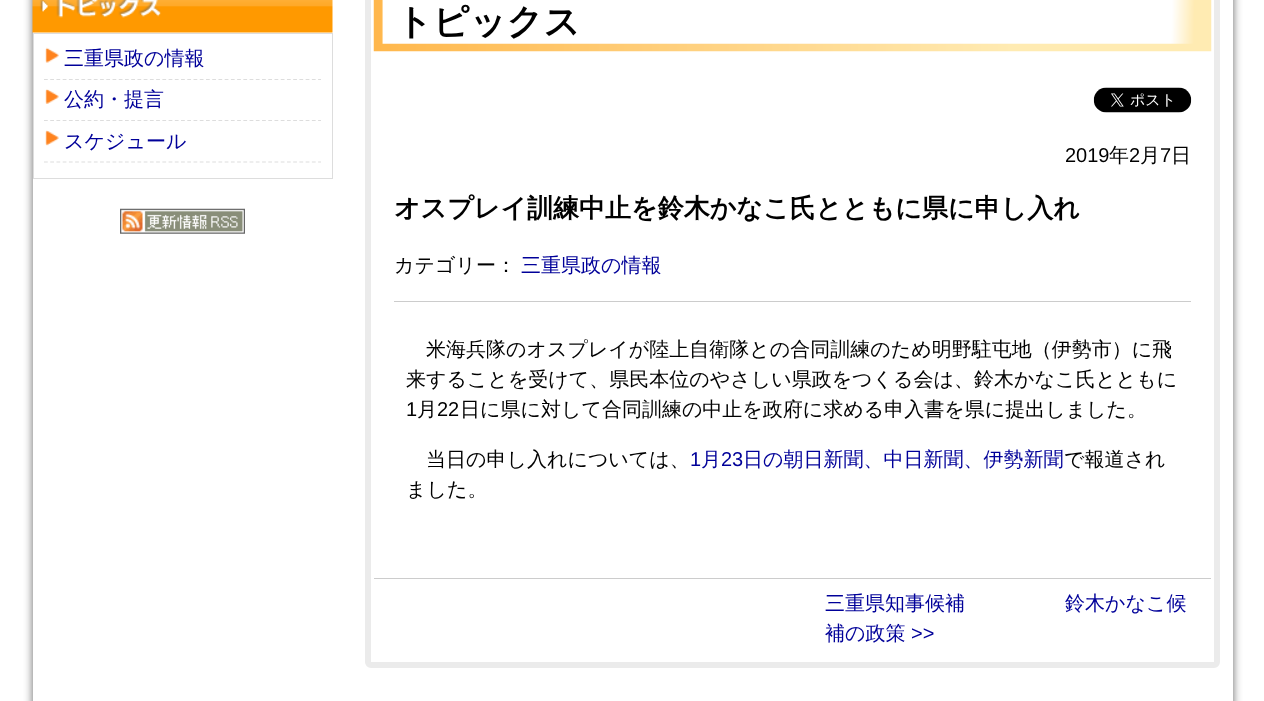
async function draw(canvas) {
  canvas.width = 1264
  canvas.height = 701
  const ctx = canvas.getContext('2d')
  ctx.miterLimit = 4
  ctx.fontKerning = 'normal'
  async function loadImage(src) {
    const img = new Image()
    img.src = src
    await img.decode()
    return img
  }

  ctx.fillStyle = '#fff'
  ctx.fillRect(0, 0, 1264, 701)
  ctx.fillStyle = '#666'
  ctx.filter = 'blur(5px)'
  ctx.beginPath()
  ctx.rect(33, -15, 1200, 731)
  ctx.fill()
  ctx.filter = 'none'
  ctx.fillStyle = '#fff'
  ctx.fillRect(33, 0, 1200, 701)
  ctx.drawImage(await loadImage('image0.png'), 32, 0, 301, 33)
  ctx.strokeStyle = '#ddd'
  ctx.strokeRect(33.5, 33.5, 299, 145)
  ctx.drawImage(await loadImage('image1.png'), 45, 47, 14, 16)
  ctx.beginPath()
  ctx.moveTo(44, 79.5)
  ctx.lineTo(321, 79.5)
  ctx.lineWidth = 1.2
  ctx.setLineDash([3.75, 2.48])
  ctx.stroke()
  ctx.font = '500 20px WenQuanYi Zen Hei'
  ctx.fillStyle = '#009'
  ctx.fillText('三重県政の情報', 64, 65)
  ctx.drawImage(await loadImage('image2.png'), 45, 89, 14, 15)
  ctx.beginPath()
  ctx.moveTo(44, 120.5)
  ctx.lineTo(321, 120.5)
  ctx.stroke()
  ctx.fillText('公約・提言', 64, 106)
  ctx.drawImage(await loadImage('image3.png'), 45, 130, 14, 16)
  ctx.beginPath()
  ctx.moveTo(44, 162)
  ctx.lineTo(321, 162)
  ctx.stroke()
  ctx.fillText('スケジュール', 64, 148)
  ctx.drawImage(await loadImage('image4.png'), 120, 208, 125, 26)
  ctx.beginPath()
  ctx.roundRect(368, -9, 849, 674, 3)
  ctx.strokeStyle = '#ebebeb'
  ctx.lineWidth = 6
  ctx.setLineDash([])
  ctx.stroke()
  ctx.drawImage(await loadImage('image5.png'), 373, 0, 839, 52)
  ctx.font = 'bold 36px WenQuanYi Zen Hei'
  ctx.fillStyle = '#000'
  ctx.fillText('トピックス', 396, 34)
  ctx.drawImage(await loadImage('image6.png'), 1093, 87, 99, 26)
  ctx.font = '20px Liberation Sans'
  ctx.fillText('2019', 1065, 162)
  ctx.font = '500 20px WenQuanYi Zen Hei'
  ctx.fillText('年', 1109, 162)
  ctx.font = '20px Liberation Sans'
  ctx.fillText('2', 1129, 162)
  ctx.font = '500 20px WenQuanYi Zen Hei'
  ctx.fillText('月', 1140, 162)
  ctx.font = '20px Liberation Sans'
  ctx.fillText('7', 1160, 162)
  ctx.font = '500 20px WenQuanYi Zen Hei'
  ctx.fillText('日', 1171, 162)
  ctx.font = 'bold 26px WenQuanYi Zen Hei'
  ctx.fillText('オスプレイ訓練中止を鈴木かなこ氏とともに県に申し入れ', 394, 217)
  ctx.fillStyle = '#ccc'
  ctx.fillRect(394, 301, 797, 1)
  ctx.font = '500 20px WenQuanYi Zen Hei'
  ctx.fillStyle = '#000'
  ctx.fillText('カテゴリー：', 394, 272)
  ctx.fillStyle = '#009'
  ctx.fillText('三重県政の情報', 521, 272)
  ctx.fillStyle = '#000'
  ctx.fillText('米海兵隊のオスプレイが陸上自衛隊との合同訓練のため明野駐屯地（伊勢市）に飛', 426, 356)
  ctx.fillText('来することを受けて、県民本位のやさしい県政をつくる会は、鈴木かなこ氏とともに', 406, 386)
  ctx.font = '20px Liberation Sans'
  ctx.fillText('1', 406, 416)
  ctx.font = '500 20px WenQuanYi Zen Hei'
  ctx.fillText('月', 417, 416)
  ctx.font = '20px Liberation Sans'
  ctx.fillText('22', 437, 416)
  ctx.font = '500 20px WenQuanYi Zen Hei'
  ctx.fillText('日に県に対して合同訓練の中止を政府に求める申入書を県に提出しました。', 460, 416)
  ctx.fillText('当日の申し入れについては、', 426, 466)
  ctx.font = '20px Liberation Sans'
  ctx.fillStyle = '#009'
  ctx.fillText('1', 690, 466)
  ctx.font = '500 20px WenQuanYi Zen Hei'
  ctx.fillText('月', 701, 466)
  ctx.font = '20px Liberation Sans'
  ctx.fillText('23', 721, 466)
  ctx.font = '500 20px WenQuanYi Zen Hei'
  ctx.fillText('日の朝日新聞、中日新聞、伊勢新聞', 743, 466)
  ctx.fillStyle = '#000'
  ctx.fillText('で報道され', 1064, 466)
  ctx.fillText('ました。', 406, 496)
  ctx.fillStyle = '#ccc'
  ctx.fillRect(374, 578, 837, 1)
  ctx.fillStyle = '#009'
  ctx.fillText('三重県知事候補　　　　　鈴木かなこ候', 825, 610)
  ctx.fillText('補の政策', 825, 640)
  ctx.font = '20px Liberation Sans'
  ctx.fillText('>>', 911, 640)
}

draw(document.querySelector('canvas'))
